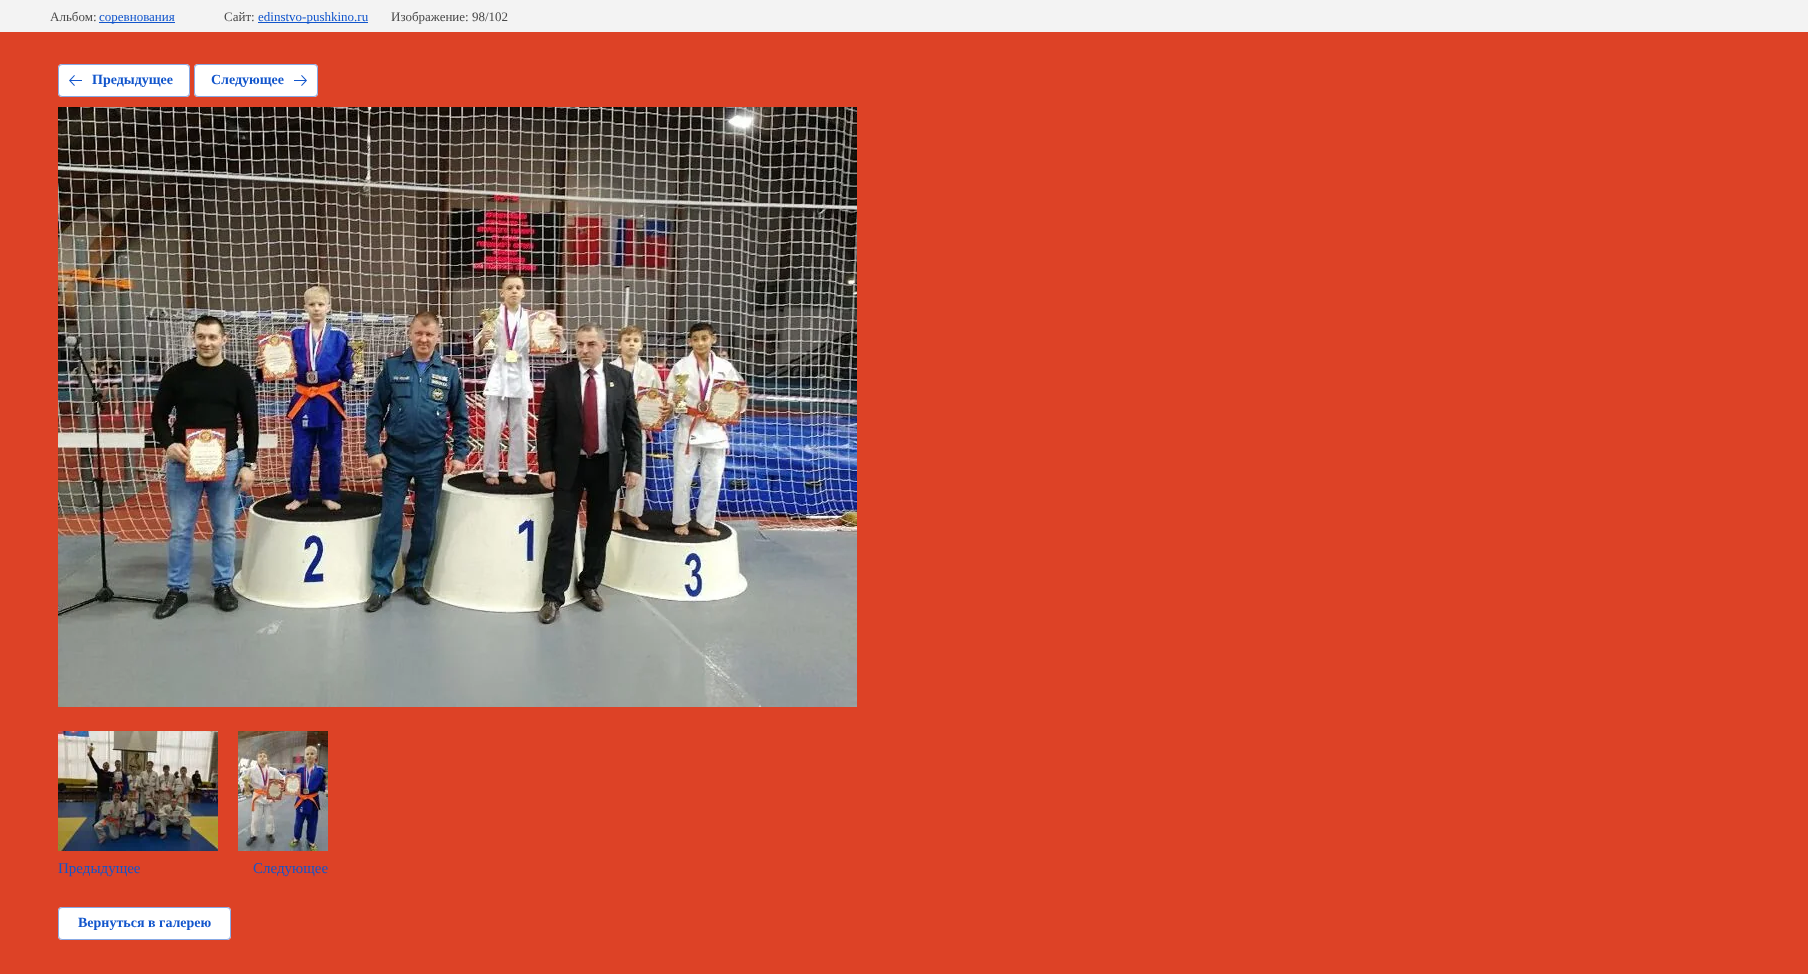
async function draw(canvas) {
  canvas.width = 1808
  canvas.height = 974
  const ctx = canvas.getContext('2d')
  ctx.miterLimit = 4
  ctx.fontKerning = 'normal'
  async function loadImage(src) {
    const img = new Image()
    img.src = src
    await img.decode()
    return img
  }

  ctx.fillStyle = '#dd4226'
  ctx.fillRect(0, 0, 1808, 974)
  ctx.fillStyle = '#f3f3f3'
  ctx.fillRect(0, 0, 1808, 32)
  ctx.font = '13px Liberation Serif'
  ctx.fillStyle = '#484848'
  ctx.fillText('Альбом:', 50, 21)
  ctx.fillStyle = '#15c'
  ctx.fillRect(99, 22, 76, 1)
  ctx.fillText('соревнования', 99, 21)
  ctx.fillStyle = '#484848'
  ctx.fillText('Сайт:', 224, 21)
  ctx.fillStyle = '#15c'
  ctx.fillRect(258, 22, 110, 1)
  ctx.fillText('edinstvo-pushkino.ru', 258, 21)
  ctx.fillStyle = '#484848'
  ctx.fillText('Изображение: 98/102', 391, 21)
  ctx.fillStyle = '#fff'
  ctx.beginPath()
  ctx.roundRect(58, 64, 132, 33, 4)
  ctx.fill()
  ctx.beginPath()
  ctx.roundRect(58.5, 64.5, 131, 32, 3.5)
  ctx.strokeStyle = '#1155cc80'
  ctx.stroke()
  ctx.drawImage(await loadImage('image0.png'), 69, 75, 13, 11)
  ctx.font = 'bold 14px Liberation Serif'
  ctx.fillStyle = '#15c'
  ctx.fillText('Предыдущее', 92, 84)
  ctx.fillStyle = '#fff'
  ctx.beginPath()
  ctx.roundRect(194, 64, 124, 33, 4)
  ctx.fill()
  ctx.beginPath()
  ctx.roundRect(194.5, 64.5, 123, 32, 3.5)
  ctx.stroke()
  ctx.fillStyle = '#15c'
  ctx.fillText('Следующее', 211, 84)
  ctx.drawImage(await loadImage('image1.png'), 294, 75, 13, 11)
  ctx.drawImage(await loadImage('image2.png'), 58, 107, 799, 600)
  ctx.drawImage(await loadImage('image3.png'), 58, 731, 160, 120)
  ctx.font = '15px Liberation Serif'
  ctx.fillText('Предыдущее', 58, 873)
  ctx.drawImage(await loadImage('image4.png'), 238, 731, 90, 120)
  ctx.fillText('Следующее', 253, 873)
  ctx.fillStyle = '#fff'
  ctx.beginPath()
  ctx.roundRect(58, 907, 173, 33, 4)
  ctx.fill()
  ctx.beginPath()
  ctx.roundRect(58.5, 907.5, 172, 32, 3.5)
  ctx.stroke()
  ctx.font = 'bold 14px Liberation Serif'
  ctx.fillStyle = '#15c'
  ctx.fillText('Вернуться в галерею', 78, 927)
}

draw(document.querySelector('canvas'))
